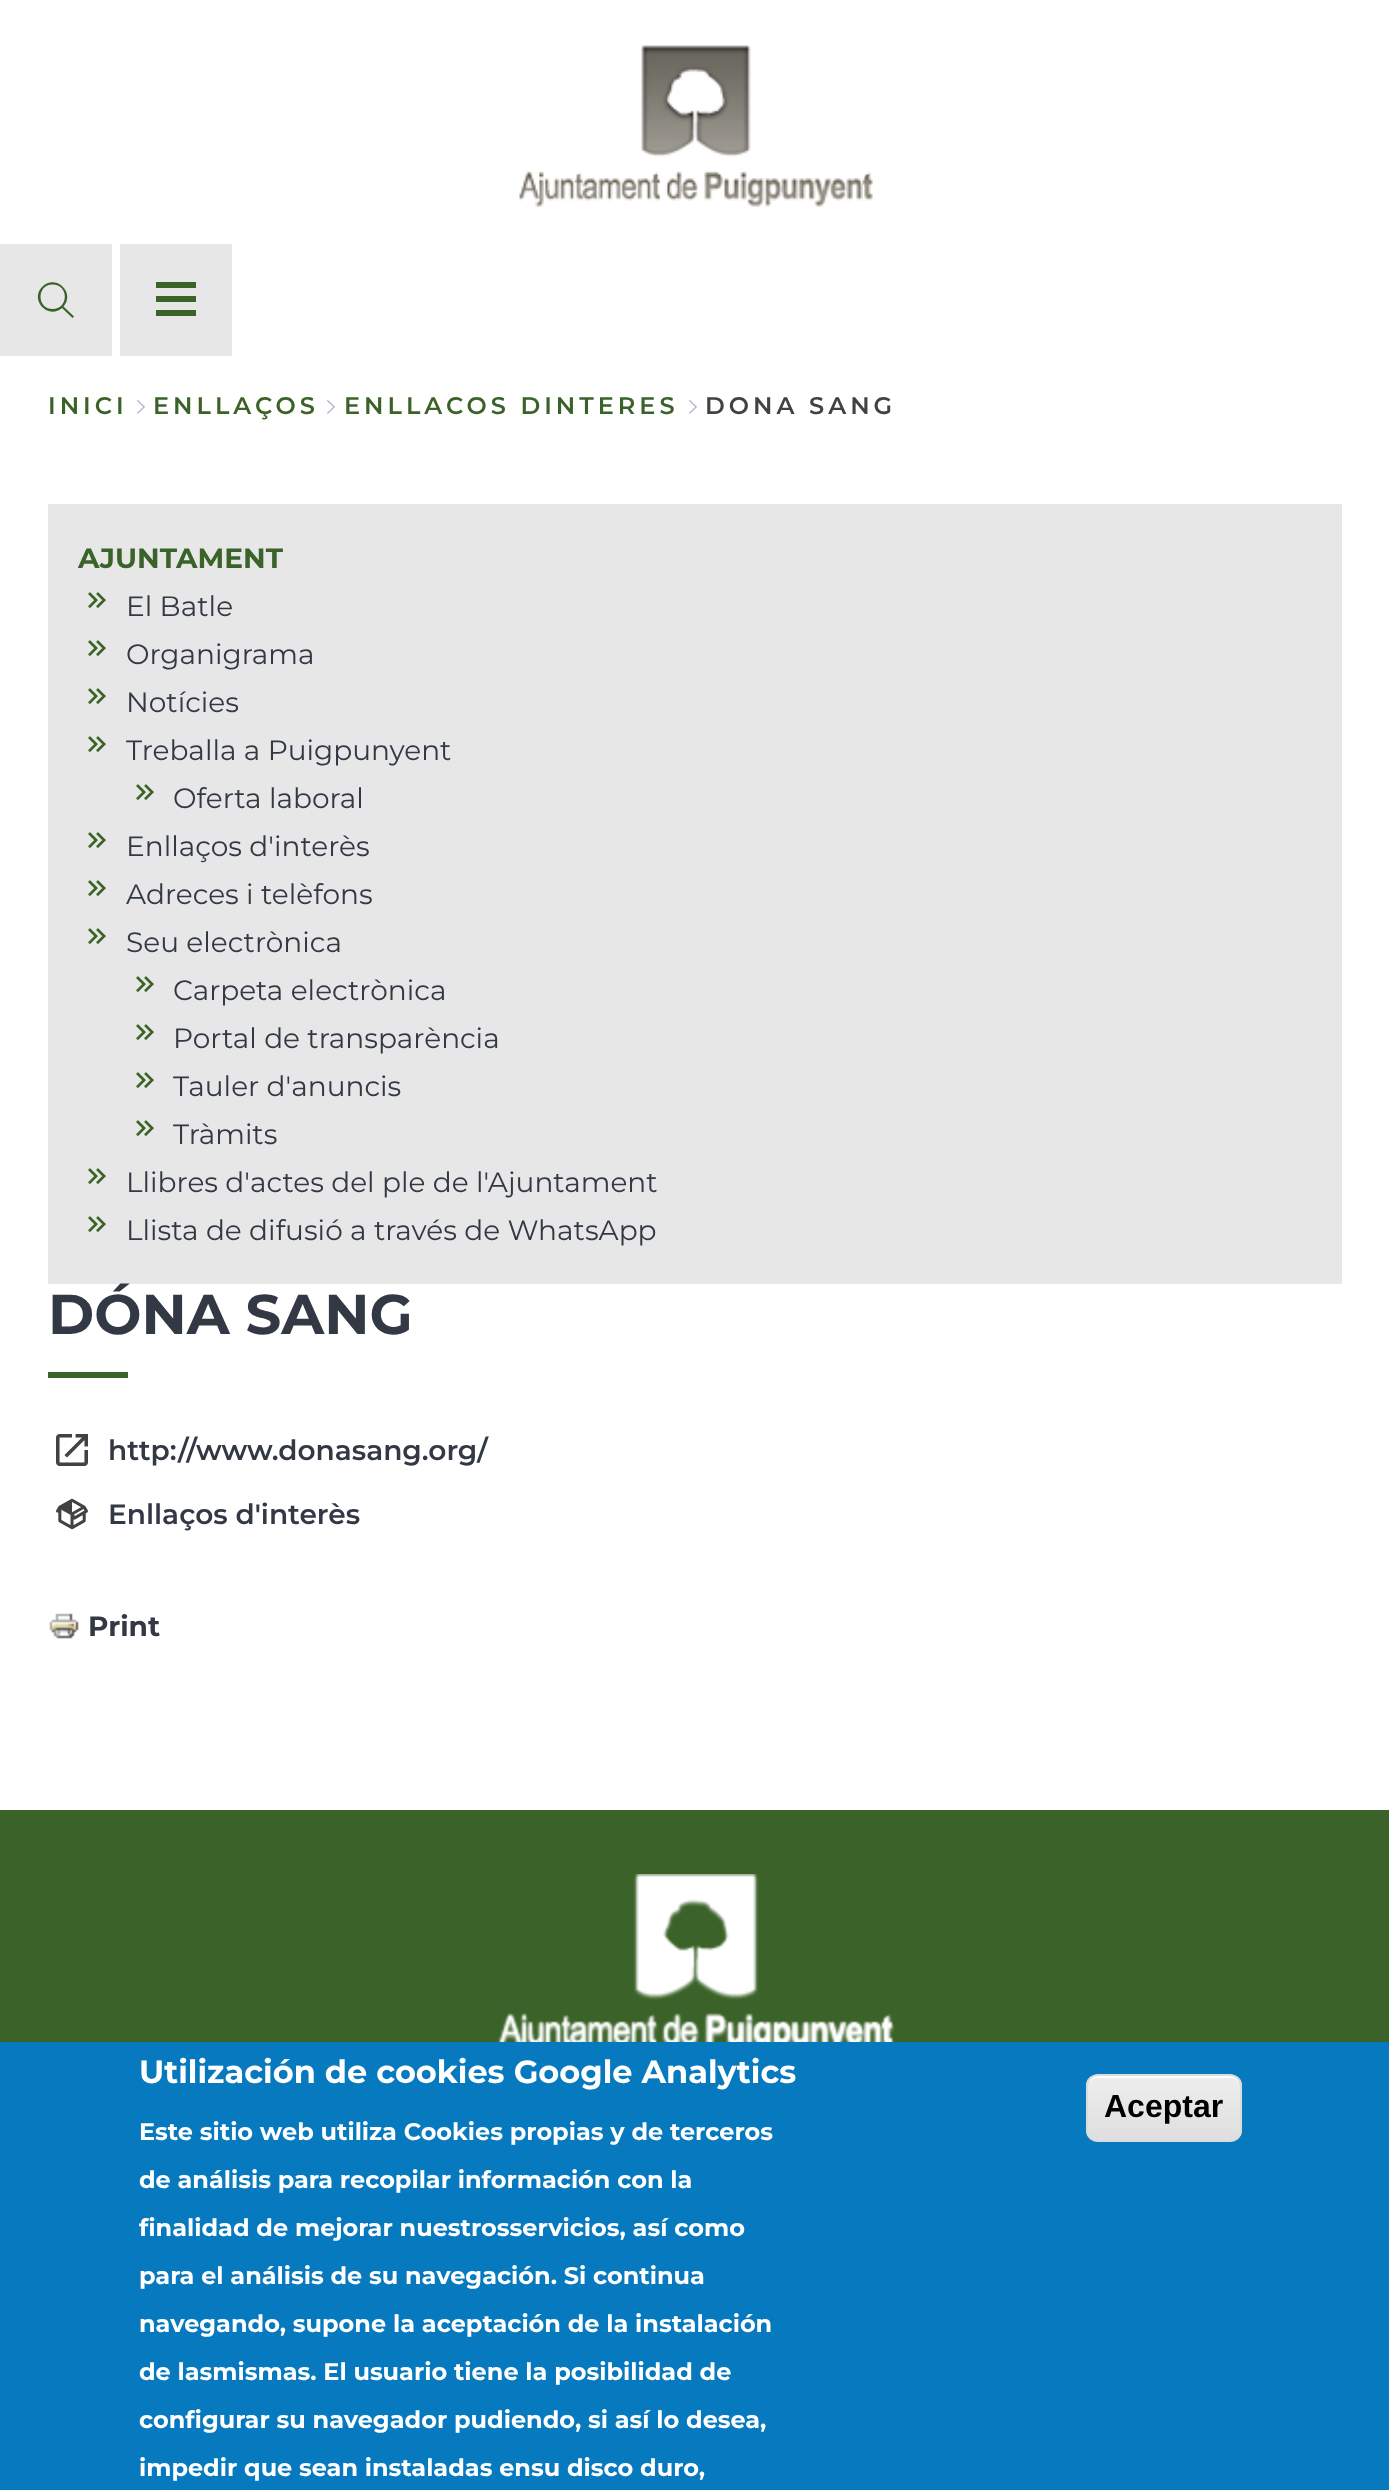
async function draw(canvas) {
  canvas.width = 1389
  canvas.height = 2490
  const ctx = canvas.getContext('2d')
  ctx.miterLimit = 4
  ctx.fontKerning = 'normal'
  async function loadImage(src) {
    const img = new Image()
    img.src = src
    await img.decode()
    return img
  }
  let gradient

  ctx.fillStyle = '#fff'
  ctx.fillRect(0, 0, 1389, 2490)
  ctx.drawImage(await loadImage('image0.png'), 519, 45, 354, 163)
  ctx.fillStyle = '#e7e7e8'
  ctx.fillRect(0, 244, 112, 112)
  ctx.fillStyle = '#3b6329'
  ctx.beginPath()
  ctx.moveTo(52.5, 309)
  ctx.bezierCurveTo(69, 309, 69, 284.5, 52.5, 284.5)
  ctx.bezierCurveTo(36.5, 284.5, 36.5, 309, 52.5, 309)
  ctx.closePath()
  ctx.moveTo(63.5, 306.5)
  ctx.lineTo(74, 316.5)
  ctx.lineTo(72.5, 318)
  ctx.lineTo(62, 308)
  ctx.bezierCurveTo(48, 320, 29, 299.5, 42.5, 286.5)
  ctx.bezierCurveTo(55.5, 273.5, 76, 292.5, 63.5, 306.5)
  ctx.closePath()
  ctx.fill()
  ctx.fillStyle = '#e7e7e8'
  ctx.fillRect(120, 244, 112, 112)
  ctx.fillStyle = '#3b6329'
  ctx.fillRect(156, 296, 40, 6)
  ctx.fillRect(156, 282, 40, 6)
  ctx.fillRect(156, 310, 40, 6)
  ctx.letterSpacing = '4px'
  ctx.font = '600 24px Montserrat'
  ctx.fillText('INICI', 48, 414)
  ctx.drawImage(await loadImage('image1.png'), 137, 400, 8, 14)
  ctx.fillText('ENLLAÇOS', 153, 414)
  ctx.drawImage(await loadImage('image1.png'), 327, 400, 8, 14)
  ctx.fillText('ENLLACOS DINTERES', 344, 414)
  ctx.drawImage(await loadImage('image1.png'), 689, 400, 8, 14)
  ctx.fillStyle = '#424242'
  ctx.fillText('DONA SANG', 705, 414)
  ctx.fillStyle = '#e7e7e8'
  ctx.fillRect(48, 504, 1294, 780)
  ctx.letterSpacing = '0px'
  ctx.font = 'bold 28px Montserrat'
  ctx.fillStyle = '#3b6329'
  ctx.fillText('AJUNTAMENT', 78, 568)
  ctx.drawImage(await loadImage('image2.png'), 88, 592, 18, 17)
  ctx.font = '28px Montserrat'
  ctx.fillStyle = '#323945'
  ctx.fillText('El Batle', 126, 616)
  ctx.drawImage(await loadImage('image2.png'), 88, 640, 18, 17)
  ctx.fillText('Organigrama', 126, 664)
  ctx.drawImage(await loadImage('image2.png'), 88, 688, 18, 17)
  ctx.fillText('Notícies', 126, 712)
  ctx.drawImage(await loadImage('image2.png'), 88, 736, 18, 17)
  ctx.fillText('Treballa a Puigpunyent', 126, 760)
  ctx.drawImage(await loadImage('image2.png'), 136, 784, 18, 17)
  ctx.fillText('Oferta laboral', 173, 808)
  ctx.drawImage(await loadImage('image2.png'), 88, 832, 18, 17)
  ctx.fillText('Enllaços d\'interès', 126, 856)
  ctx.drawImage(await loadImage('image2.png'), 88, 880, 18, 17)
  ctx.fillText('Adreces i telèfons', 126, 904)
  ctx.drawImage(await loadImage('image2.png'), 88, 928, 18, 17)
  ctx.fillText('Seu electrònica', 126, 952)
  ctx.drawImage(await loadImage('image2.png'), 136, 976, 18, 17)
  ctx.fillText('Carpeta electrònica', 173, 1000)
  ctx.drawImage(await loadImage('image2.png'), 136, 1024, 18, 17)
  ctx.fillText('Portal de transparència', 173, 1048)
  ctx.drawImage(await loadImage('image2.png'), 136, 1072, 18, 17)
  ctx.fillText('Tauler d\'anuncis', 173, 1096)
  ctx.drawImage(await loadImage('image2.png'), 136, 1120, 18, 17)
  ctx.fillText('Tràmits', 173, 1144)
  ctx.drawImage(await loadImage('image2.png'), 88, 1168, 18, 17)
  ctx.fillText('Llibres d\'actes del ple de l\'Ajuntament', 126, 1192)
  ctx.drawImage(await loadImage('image2.png'), 88, 1216, 18, 17)
  ctx.fillText('Llista de difusió a través de WhatsApp', 126, 1240)
  ctx.font = 'bold 56px Montserrat'
  ctx.fillText('DÓNA SANG', 48, 1334)
  ctx.fillStyle = '#3b6329'
  ctx.fillRect(48, 1372, 80, 6)
  ctx.drawImage(await loadImage('image3.png'), 56, 1434, 32, 32)
  ctx.font = '600 28px Montserrat'
  ctx.fillStyle = '#323945'
  ctx.fillText('http://www.donasang.org/', 108, 1460)
  ctx.drawImage(await loadImage('image4.png'), 56, 1498, 32, 32)
  ctx.fillText('Enllaços d\'interès', 108, 1524)
  ctx.drawImage(await loadImage('image5.png'), 49, 1613, 30, 26)
  ctx.font = 'bold 28px Montserrat'
  ctx.fillText('Print', 88, 1636)
  ctx.fillStyle = '#3b6329'
  ctx.fillRect(0, 1810, 1389, 232)
  ctx.drawImage(await loadImage('image6.png'), 498, 1874, 396, 168)
  ctx.fillStyle = '#0779bf'
  ctx.fillRect(0, 2042, 1389, 448)
  ctx.font = 'bold 32px Montserrat'
  ctx.fillStyle = '#fff'
  ctx.fillText('Utilización de cookies Google Analytics', 139, 2083)
  ctx.font = 'bold 24px Montserrat'
  ctx.fillText('Este sitio web utiliza Cookies propias y de terceros', 139, 2140)
  ctx.fillText('de análisis para recopilar información con la', 139, 2188)
  ctx.fillText('finalidad de mejorar nuestrosservicios, así como', 139, 2236)
  ctx.fillText('para el análisis de su navegación. Si continua', 139, 2284)
  ctx.fillText('navegando, supone la aceptación de la instalación', 139, 2332)
  ctx.fillText('de lasmismas. El usuario tiene la posibilidad de', 139, 2380)
  ctx.fillText('configurar su navegador pudiendo, si así lo desea,', 139, 2428)
  ctx.fillText('impedir que sean instaladas ensu disco duro,', 139, 2476)
  ctx.save()
  ctx.beginPath()
  ctx.roundRect(1086, 2074, 156, 68, 12)
  ctx.clip()
  gradient = ctx.createLinearGradient(1164, 2076, 1164, 2140)
  gradient.addColorStop(0.05, '#ededed')
  gradient.addColorStop(1, '#dfdfdf')
  ctx.fillStyle = gradient
  ctx.fillRect(1086, 2076, 156, 64)
  ctx.restore()
  ctx.beginPath()
  ctx.moveTo(1098, 2078)
  ctx.lineTo(1230, 2078)
  ctx.bezierCurveTo(1236, 2078, 1240, 2082, 1240, 2088)
  ctx.bezierCurveTo(1240, 2071, 1220, 2076, 1208, 2076)
  ctx.lineTo(1120, 2076)
  ctx.bezierCurveTo(1108, 2076, 1088, 2071, 1088, 2088)
  ctx.bezierCurveTo(1088, 2082, 1092, 2078, 1098, 2078)
  ctx.closePath()
  ctx.fill()
  ctx.beginPath()
  ctx.roundRect(1087, 2075, 154, 66, 11)
  ctx.strokeStyle = '#dcdcdc'
  ctx.lineWidth = 2
  ctx.stroke()
  ctx.font = 'bold 32px Liberation Sans'
  ctx.fillStyle = '#000'
  ctx.fillText('Aceptar', 1104, 2117)
}

draw(document.querySelector('canvas'))
